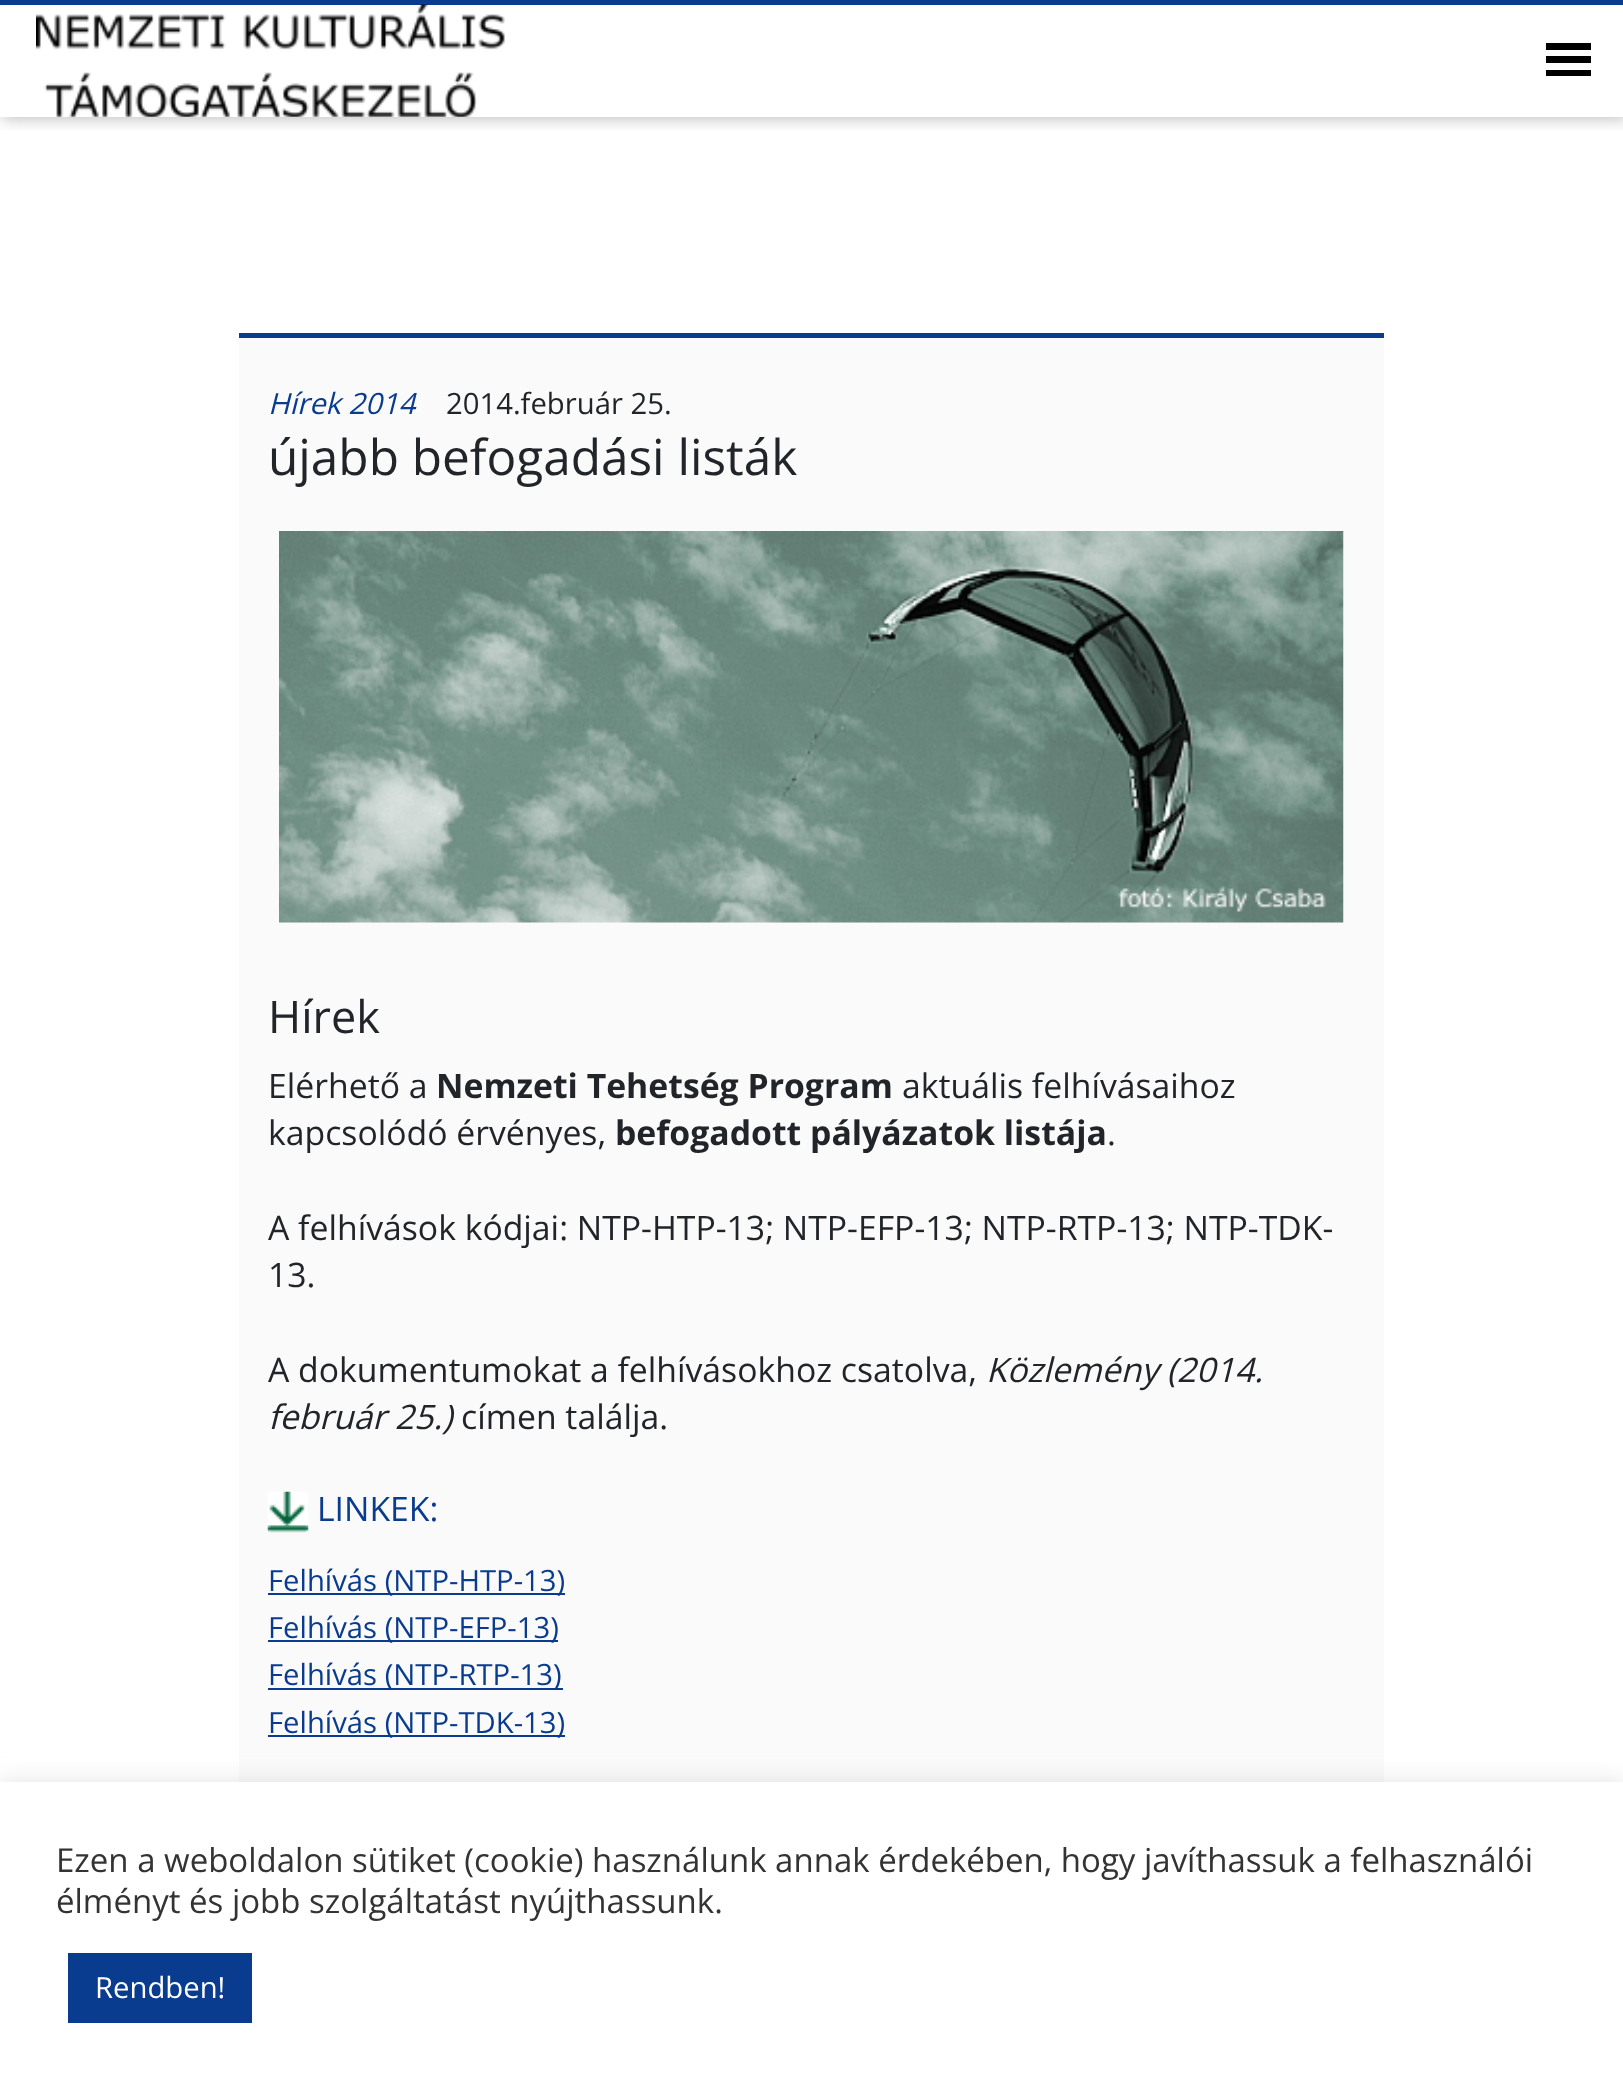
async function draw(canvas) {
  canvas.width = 1623
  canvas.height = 2089
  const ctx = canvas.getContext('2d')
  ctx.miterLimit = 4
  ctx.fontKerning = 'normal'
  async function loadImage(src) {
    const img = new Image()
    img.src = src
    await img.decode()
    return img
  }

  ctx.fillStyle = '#fff'
  ctx.fillRect(0, 0, 1623, 2089)
  ctx.save()
  ctx.beginPath()
  ctx.rect(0, 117, 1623, 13)
  ctx.clip()
  ctx.fillStyle = '#00000040'
  ctx.filter = 'blur(8px)'
  ctx.beginPath()
  ctx.rect(2, 2, 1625, 117)
  ctx.fill()
  ctx.filter = 'none'
  ctx.restore()
  ctx.fillStyle = '#093b8e'
  ctx.fillRect(0, 0, 1623, 5)
  ctx.drawImage(await loadImage('image0.png'), 36, 4, 469, 113)
  ctx.fillStyle = '#000'
  ctx.beginPath()
  ctx.moveTo(1591, 50)
  ctx.lineTo(1591, 43)
  ctx.lineTo(1546, 43)
  ctx.lineTo(1546, 50)
  ctx.closePath()
  ctx.moveTo(1591, 63)
  ctx.lineTo(1591, 56)
  ctx.lineTo(1546, 56)
  ctx.lineTo(1546, 63)
  ctx.closePath()
  ctx.moveTo(1591, 76)
  ctx.lineTo(1591, 70)
  ctx.lineTo(1546, 70)
  ctx.lineTo(1546, 76)
  ctx.closePath()
  ctx.fill()
  ctx.fillStyle = '#fafafa'
  ctx.fillRect(239, 338, 1145, 1444)
  ctx.fillStyle = '#093b8e'
  ctx.fillRect(239, 333, 1145, 5)
  ctx.font = 'italic 29.25px Open Sans'
  ctx.fillText('Hírek 2014', 268, 414)
  ctx.font = '29.25px Open Sans'
  ctx.fillStyle = '#212529'
  ctx.fillText('2014.február 25.', 446, 414)
  ctx.font = '49.5px Open Sans'
  ctx.fillText('újabb befogadási listák', 268, 475)
  ctx.drawImage(await loadImage('image1.png'), 279, 531, 1065, 392)
  ctx.font = '45px Open Sans'
  ctx.fillText('Hírek', 268, 1033)
  ctx.font = '33.75px Open Sans'
  ctx.fillText('Elérhető a', 268, 1098)
  ctx.font = 'bold 33.75px Open Sans'
  ctx.fillText('Nemzeti Tehetség Program', 436, 1098)
  ctx.font = '33.75px Open Sans'
  ctx.fillText('aktuális felhívásaihoz', 902, 1098)
  ctx.fillText('kapcsolódó érvényes,', 268, 1145)
  ctx.font = 'bold 33.75px Open Sans'
  ctx.fillText('befogadott pályázatok listája', 615, 1145)
  ctx.font = '33.75px Open Sans'
  ctx.fillText('.', 1107, 1145)
  ctx.fillText('A felhívások kódjai: NTP-HTP-13; NTP-EFP-13; NTP-RTP-13; NTP-TDK-', 268, 1240)
  ctx.fillText('13.', 268, 1287)
  ctx.fillText('A dokumentumokat a felhívásokhoz csatolva,', 268, 1382)
  ctx.font = 'italic 33.75px Open Sans'
  ctx.fillText('Közlemény (2014.', 986, 1382)
  ctx.fillText('február 25.)', 268, 1429)
  ctx.font = '33.75px Open Sans'
  ctx.fillText('címen találja.', 461, 1429)
  ctx.drawImage(await loadImage('image2.png'), 267, 1491, 42, 42)
  ctx.fillStyle = '#093b8e'
  ctx.fillText('LINKEK:', 317, 1521)
  ctx.fillRect(268, 1593, 297, 2)
  ctx.font = '29.25px Open Sans'
  ctx.fillText('Felhívás (NTP-HTP-13)', 268, 1591)
  ctx.fillRect(268, 1640, 290, 2)
  ctx.fillText('Felhívás (NTP-EFP-13)', 268, 1638)
  ctx.fillRect(268, 1688, 295, 2)
  ctx.fillText('Felhívás (NTP-RTP-13)', 268, 1685)
  ctx.fillRect(268, 1735, 297, 2)
  ctx.fillText('Felhívás (NTP-TDK-13)', 268, 1733)
  ctx.fillStyle = '#acabab4d'
  ctx.filter = 'blur(11px)'
  ctx.beginPath()
  ctx.rect(0, 1780, 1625, 308)
  ctx.fill()
  ctx.filter = 'none'
  ctx.fillStyle = '#fff'
  ctx.fillRect(0, 1782, 1623, 307)
  ctx.font = '33px Open Sans'
  ctx.fillStyle = '#333'
  ctx.fillText('Ezen a weboldalon sütiket (cookie) használunk annak érdekében, hogy javíthassuk a felhasználói', 56, 1872)
  ctx.fillText('élményt és jobb szolgáltatást nyújthassunk.', 56, 1913)
  ctx.fillStyle = '#093b8e'
  ctx.fillRect(68, 1953, 184, 70)
  ctx.font = '29.25px Open Sans'
  ctx.fillStyle = '#fff'
  ctx.fillText('Rendben!', 95, 1998)
}

draw(document.querySelector('canvas'))
